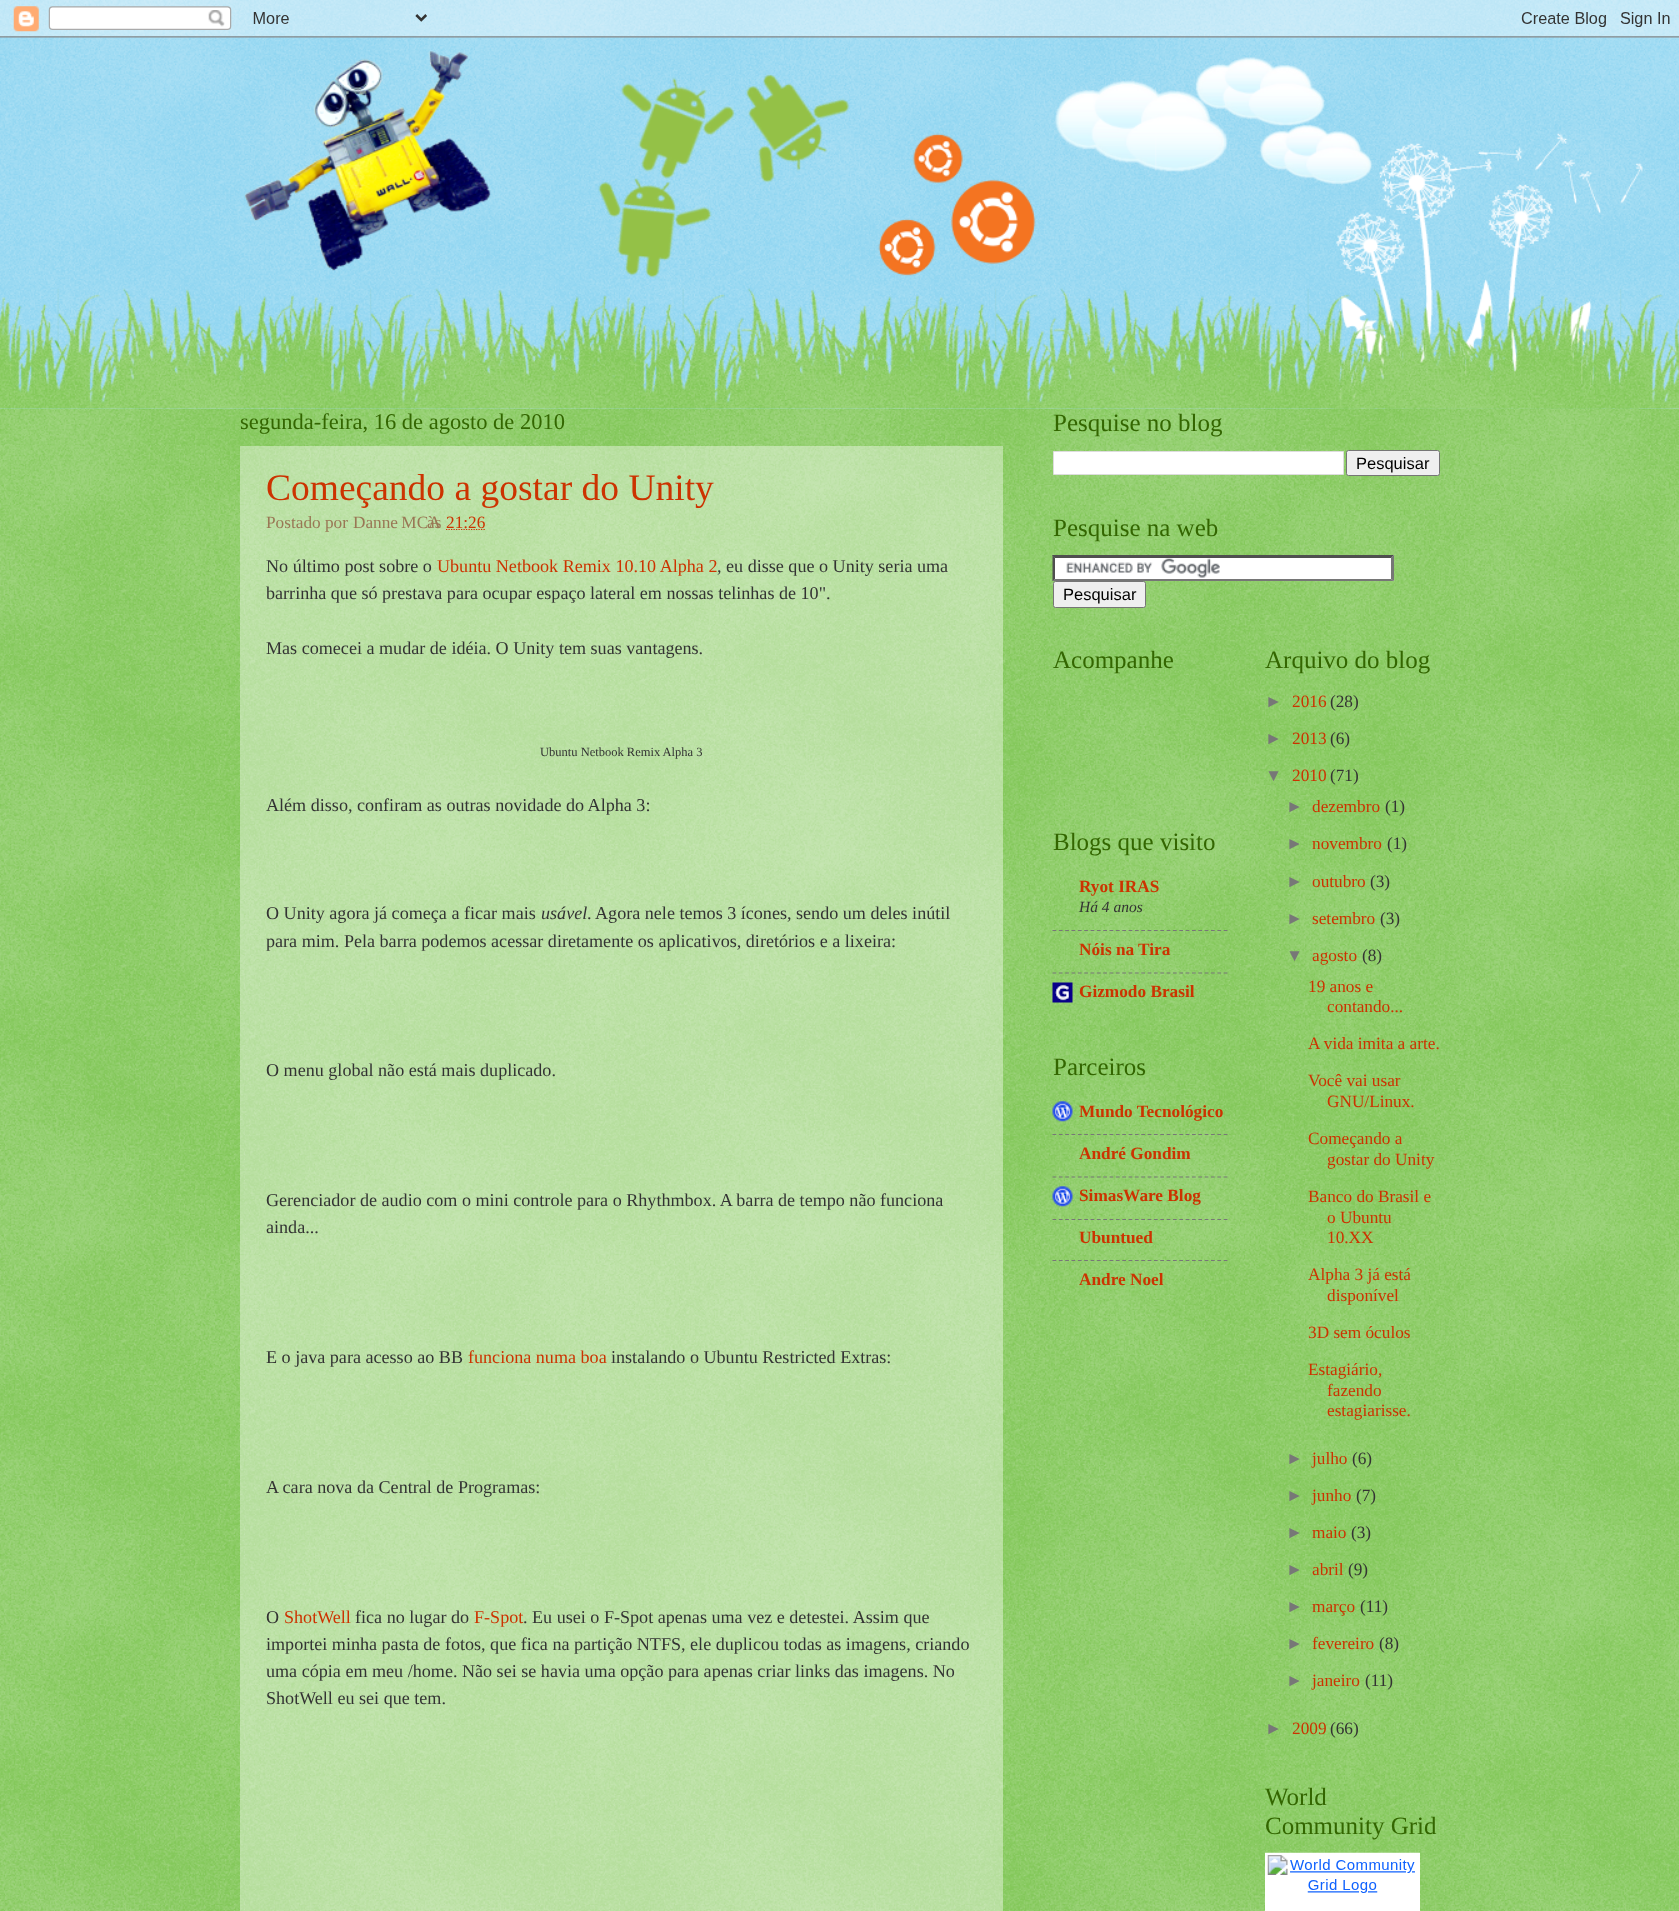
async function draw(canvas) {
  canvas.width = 1679
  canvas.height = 1911
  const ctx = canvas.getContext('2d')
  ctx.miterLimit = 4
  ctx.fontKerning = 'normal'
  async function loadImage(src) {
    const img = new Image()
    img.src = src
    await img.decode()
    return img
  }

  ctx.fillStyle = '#7ce'
  ctx.fillRect(0, 0, 1679, 1911)
  ctx.drawImage(await loadImage('image0.png'), 0, 0, 1679, 409)
  ctx.drawImage(await loadImage('image1.png'), 0, 0, 1679, 38)
  ctx.drawImage(await loadImage('image2.png'), 244, 50, 1129, 228)
  ctx.fillStyle = '#6b3'
  ctx.fillRect(0, 409, 1679, 1502)
  ctx.drawImage(await loadImage('image3.png'), 0, 408, 1679, 1503)
  ctx.drawImage(await loadImage('image4.png'), 1330, 133, 313, 276)
  ctx.drawImage(await loadImage('image5.png'), 0, 288, 1679, 121)
  ctx.font = '22.5px Liberation Serif'
  ctx.fillStyle = '#360'
  ctx.fillText('segunda-feira, 16 de agosto de 2010', 240, 429)
  ctx.fillStyle = '#ffffff66'
  ctx.fillRect(240, 446, 763, 1465)
  ctx.font = '37.5px Liberation Serif'
  ctx.fillStyle = '#c30'
  ctx.fillText('Começando a gostar do Unity', 266, 500)
  ctx.font = '17.25px Liberation Serif'
  ctx.fillStyle = '#975'
  ctx.fillText('Postado por', 266, 528)
  ctx.wordSpacing = '-1px'
  ctx.fillText('Danne MCA', 353, 528)
  ctx.wordSpacing = '0px'
  ctx.fillText('às', 427, 528)
  ctx.beginPath()
  ctx.moveTo(446, 529.5)
  ctx.lineTo(485, 529.5)
  ctx.strokeStyle = '#c30'
  ctx.lineWidth = 1.2
  ctx.setLineDash([1.25, 1.25])
  ctx.stroke()
  ctx.fillStyle = '#c30'
  ctx.fillText('21:26', 446, 528)
  ctx.font = '18.1px Liberation Serif'
  ctx.fillStyle = '#333'
  ctx.fillText('No último post sobre o', 266, 572)
  ctx.fillStyle = '#c30'
  ctx.fillText('Ubuntu Netbook Remix 10.10 Alpha 2', 437, 572)
  ctx.fillStyle = '#333'
  ctx.fillText(', eu disse que o Unity seria uma', 717, 572)
  ctx.fillText('barrinha que só prestava para ocupar espaço lateral em nossas telinhas de 10".', 266, 599)
  ctx.fillText('Mas comecei a mudar de idéia. O Unity tem suas vantagens.', 266, 654)
  ctx.font = '12.5px Liberation Serif'
  ctx.fillText('Ubuntu Netbook Remix Alpha 3', 540, 756)
  ctx.font = '18.1px Liberation Serif'
  ctx.fillText('Além disso, confiram as outras novidade do Alpha 3:', 266, 811)
  ctx.fillText('O Unity agora já começa a ficar mais', 266, 919)
  ctx.font = 'italic 18.1px Liberation Serif'
  ctx.fillText('usável', 541, 919)
  ctx.font = '18.1px Liberation Serif'
  ctx.fillText('. Agora nele temos 3 ícones, sendo um deles inútil', 587, 919)
  ctx.fillText('para mim. Pela barra podemos acessar diretamente os aplicativos, diretórios e a lixeira:', 266, 947)
  ctx.fillText('O menu global não está mais duplicado.', 266, 1076)
  ctx.fillText('Gerenciador de audio com o mini controle para o Rhythmbox. A barra de tempo não funciona', 266, 1206)
  ctx.fillText('ainda...', 266, 1233)
  ctx.fillText('E o java para acesso ao BB', 266, 1363)
  ctx.fillStyle = '#c30'
  ctx.fillText('funciona numa boa', 468, 1363)
  ctx.fillStyle = '#333'
  ctx.fillText('instalando o Ubuntu Restricted Extras:', 611, 1363)
  ctx.fillText('A cara nova da Central de Programas:', 266, 1493)
  ctx.fillText('O', 266, 1623)
  ctx.fillStyle = '#c30'
  ctx.fillText('ShotWell', 284, 1623)
  ctx.fillStyle = '#333'
  ctx.fillText('fica no lugar do', 355, 1623)
  ctx.fillStyle = '#c30'
  ctx.fillText('F-Spot', 474, 1623)
  ctx.fillStyle = '#333'
  ctx.fillText('. Eu usei o F-Spot apenas uma vez e detestei. Assim que', 523, 1623)
  ctx.fillText('importei minha pasta de fotos, que fica na partição NTFS, ele duplicou todas as imagens, criando', 266, 1650)
  ctx.fillText('uma cópia em meu /home. Não sei se havia uma opção para apenas criar links das imagens. No', 266, 1677)
  ctx.fillText('ShotWell eu sei que tem.', 266, 1704)
  ctx.font = '25px Liberation Serif'
  ctx.fillStyle = '#360'
  ctx.fillText('Pesquise no blog', 1053, 431)
  ctx.fillStyle = '#fff'
  ctx.beginPath()
  ctx.rect(1053.5, 451.5, 290, 23)
  ctx.fill()
  ctx.strokeStyle = '#ddd'
  ctx.lineWidth = 1
  ctx.setLineDash([])
  ctx.stroke()
  ctx.fillStyle = '#efefef'
  ctx.beginPath()
  ctx.roundRect(1346.5, 450.5, 93, 25, 2)
  ctx.fill()
  ctx.strokeStyle = '#767676'
  ctx.stroke()
  ctx.font = '16.5px Liberation Sans'
  ctx.fillStyle = '#000'
  ctx.fillText('Pesquisar', 1356, 469)
  ctx.font = '25px Liberation Serif'
  ctx.fillStyle = '#360'
  ctx.fillText('Pesquise na web', 1053, 536)
  ctx.fillStyle = '#fff'
  ctx.fillRect(1053, 555, 341, 26)
  ctx.drawImage(await loadImage('image6.png'), 1066, 558, 154, 20)
  ctx.fillStyle = '#4f4f4f'
  ctx.beginPath()
  ctx.moveTo(1052, 555)
  ctx.lineTo(1394, 555)
  ctx.lineTo(1391, 558)
  ctx.lineTo(1055, 558)
  ctx.closePath()
  ctx.fill()
  ctx.fillStyle = '#767676'
  ctx.beginPath()
  ctx.moveTo(1394, 555)
  ctx.lineTo(1394, 581)
  ctx.lineTo(1391, 579)
  ctx.lineTo(1391, 557.5)
  ctx.closePath()
  ctx.fill()
  ctx.beginPath()
  ctx.moveTo(1394, 581)
  ctx.lineTo(1052, 581)
  ctx.lineTo(1055, 579)
  ctx.lineTo(1391, 579)
  ctx.closePath()
  ctx.fill()
  ctx.fillStyle = '#4f4f4f'
  ctx.beginPath()
  ctx.moveTo(1052.5, 581)
  ctx.lineTo(1052.5, 555)
  ctx.lineTo(1055, 557.5)
  ctx.lineTo(1055, 579)
  ctx.closePath()
  ctx.fill()
  ctx.fillStyle = '#efefef'
  ctx.beginPath()
  ctx.roundRect(1053.5, 581.5, 92, 26, 2)
  ctx.fill()
  ctx.stroke()
  ctx.font = '16.5px Liberation Sans'
  ctx.fillStyle = '#000'
  ctx.fillText('Pesquisar', 1063, 600)
  ctx.font = '25px Liberation Serif'
  ctx.fillStyle = '#360'
  ctx.fillText('Acompanhe', 1053, 668)
  ctx.fillText('Blogs que visito', 1053, 850)
  ctx.font = 'bold 17.25px Liberation Serif'
  ctx.fillStyle = '#c30'
  ctx.fillText('Ryot IRAS', 1079, 892)
  ctx.font = 'italic 15.5px Liberation Serif'
  ctx.fillStyle = '#333'
  ctx.fillText('Há 4 anos', 1079, 912)
  ctx.beginPath()
  ctx.moveTo(1052.5, 930.5)
  ctx.lineTo(1227.5, 930.5)
  ctx.strokeStyle = '#777'
  ctx.lineWidth = 1.2
  ctx.setLineDash([3.75, 2.59])
  ctx.stroke()
  ctx.font = 'bold 17.25px Liberation Serif'
  ctx.fillStyle = '#c30'
  ctx.fillText('Nóis na Tira', 1079, 955)
  ctx.beginPath()
  ctx.moveTo(1052.5, 973)
  ctx.lineTo(1227.5, 973)
  ctx.stroke()
  ctx.drawImage(await loadImage('image7.png'), 1052, 982, 21, 21)
  ctx.fillText('Gizmodo Brasil', 1079, 997)
  ctx.font = '25px Liberation Serif'
  ctx.fillStyle = '#360'
  ctx.fillText('Parceiros', 1053, 1075)
  ctx.drawImage(await loadImage('image8.png'), 1052, 1101, 21, 21)
  ctx.font = 'bold 17.25px Liberation Serif'
  ctx.fillStyle = '#c30'
  ctx.fillText('Mundo Tecnológico', 1079, 1117)
  ctx.beginPath()
  ctx.moveTo(1052.5, 1134.5)
  ctx.lineTo(1227.5, 1134.5)
  ctx.stroke()
  ctx.fillText('André Gondim', 1079, 1159)
  ctx.beginPath()
  ctx.moveTo(1052.5, 1177)
  ctx.lineTo(1227.5, 1177)
  ctx.stroke()
  ctx.drawImage(await loadImage('image9.png'), 1052, 1186, 21, 21)
  ctx.fillText('SimasWare Blog', 1079, 1201)
  ctx.beginPath()
  ctx.moveTo(1052.5, 1219.5)
  ctx.lineTo(1227.5, 1219.5)
  ctx.stroke()
  ctx.fillText('Ubuntued', 1079, 1243)
  ctx.beginPath()
  ctx.moveTo(1052.5, 1260.5)
  ctx.lineTo(1227.5, 1260.5)
  ctx.stroke()
  ctx.fillText('Andre Noel', 1079, 1285)
  ctx.font = '25px Liberation Serif'
  ctx.fillStyle = '#360'
  ctx.fillText('Arquivo do blog', 1265, 668)
  ctx.font = '17.25px Liberation Sans'
  ctx.fillStyle = '#777'
  ctx.fillText('►', 1265, 707)
  ctx.font = '17.25px Liberation Serif'
  ctx.fillStyle = '#c30'
  ctx.fillText('2016', 1292, 707)
  ctx.fillStyle = '#333'
  ctx.fillText('(28)', 1330, 707)
  ctx.font = '17.25px Liberation Sans'
  ctx.fillStyle = '#777'
  ctx.fillText('►', 1265, 744)
  ctx.font = '17.25px Liberation Serif'
  ctx.fillStyle = '#c30'
  ctx.fillText('2013', 1292, 744)
  ctx.fillStyle = '#333'
  ctx.fillText('(6)', 1330, 744)
  ctx.font = '17.25px Liberation Sans'
  ctx.fillStyle = '#777'
  ctx.fillText('▼', 1265, 781)
  ctx.font = '17.25px Liberation Serif'
  ctx.fillStyle = '#c30'
  ctx.fillText('2010', 1292, 781)
  ctx.fillStyle = '#333'
  ctx.fillText('(71)', 1330, 781)
  ctx.font = '17.25px Liberation Sans'
  ctx.fillStyle = '#777'
  ctx.fillText('►', 1286, 812)
  ctx.font = '17.25px Liberation Serif'
  ctx.fillStyle = '#c30'
  ctx.fillText('dezembro', 1312, 812)
  ctx.fillStyle = '#333'
  ctx.fillText('(1)', 1385, 812)
  ctx.font = '17.25px Liberation Sans'
  ctx.fillStyle = '#777'
  ctx.fillText('►', 1286, 849)
  ctx.font = '17.25px Liberation Serif'
  ctx.fillStyle = '#c30'
  ctx.fillText('novembro', 1312, 849)
  ctx.fillStyle = '#333'
  ctx.fillText('(1)', 1387, 849)
  ctx.font = '17.25px Liberation Sans'
  ctx.fillStyle = '#777'
  ctx.fillText('►', 1286, 887)
  ctx.font = '17.25px Liberation Serif'
  ctx.fillStyle = '#c30'
  ctx.fillText('outubro', 1312, 887)
  ctx.fillStyle = '#333'
  ctx.fillText('(3)', 1370, 887)
  ctx.font = '17.25px Liberation Sans'
  ctx.fillStyle = '#777'
  ctx.fillText('►', 1286, 924)
  ctx.font = '17.25px Liberation Serif'
  ctx.fillStyle = '#c30'
  ctx.fillText('setembro', 1312, 924)
  ctx.fillStyle = '#333'
  ctx.fillText('(3)', 1380, 924)
  ctx.font = '17.25px Liberation Sans'
  ctx.fillStyle = '#777'
  ctx.fillText('▼', 1286, 961)
  ctx.font = '17.25px Liberation Serif'
  ctx.fillStyle = '#c30'
  ctx.fillText('agosto', 1312, 961)
  ctx.fillStyle = '#333'
  ctx.fillText('(8)', 1362, 961)
  ctx.fillStyle = '#c30'
  ctx.fillText('19 anos e', 1308, 992)
  ctx.fillText('contando...', 1327, 1012)
  ctx.fillText('A vida imita a arte.', 1308, 1049)
  ctx.fillText('Você vai usar', 1308, 1086)
  ctx.fillText('GNU/Linux.', 1327, 1107)
  ctx.fillText('Começando a', 1308, 1144)
  ctx.fillText('gostar do Unity', 1327, 1165)
  ctx.fillText('Banco do Brasil e', 1308, 1202)
  ctx.fillText('o Ubuntu', 1327, 1223)
  ctx.fillText('10.XX', 1327, 1243)
  ctx.fillText('Alpha 3 já está', 1308, 1280)
  ctx.fillText('disponível', 1327, 1301)
  ctx.fillText('3D sem óculos', 1308, 1338)
  ctx.fillText('Estagiário,', 1308, 1375)
  ctx.fillText('fazendo', 1327, 1396)
  ctx.fillText('estagiarisse.', 1327, 1416)
  ctx.font = '17.25px Liberation Sans'
  ctx.fillStyle = '#777'
  ctx.fillText('►', 1286, 1464)
  ctx.font = '17.25px Liberation Serif'
  ctx.fillStyle = '#c30'
  ctx.fillText('julho', 1312, 1464)
  ctx.fillStyle = '#333'
  ctx.fillText('(6)', 1352, 1464)
  ctx.font = '17.25px Liberation Sans'
  ctx.fillStyle = '#777'
  ctx.fillText('►', 1286, 1501)
  ctx.font = '17.25px Liberation Serif'
  ctx.fillStyle = '#c30'
  ctx.fillText('junho', 1312, 1501)
  ctx.fillStyle = '#333'
  ctx.fillText('(7)', 1356, 1501)
  ctx.font = '17.25px Liberation Sans'
  ctx.fillStyle = '#777'
  ctx.fillText('►', 1286, 1538)
  ctx.font = '17.25px Liberation Serif'
  ctx.fillStyle = '#c30'
  ctx.fillText('maio', 1312, 1538)
  ctx.fillStyle = '#333'
  ctx.fillText('(3)', 1351, 1538)
  ctx.font = '17.25px Liberation Sans'
  ctx.fillStyle = '#777'
  ctx.fillText('►', 1286, 1575)
  ctx.font = '17.25px Liberation Serif'
  ctx.fillStyle = '#c30'
  ctx.fillText('abril', 1312, 1575)
  ctx.fillStyle = '#333'
  ctx.fillText('(9)', 1348, 1575)
  ctx.font = '17.25px Liberation Sans'
  ctx.fillStyle = '#777'
  ctx.fillText('►', 1286, 1612)
  ctx.font = '17.25px Liberation Serif'
  ctx.fillStyle = '#c30'
  ctx.fillText('março', 1312, 1612)
  ctx.fillStyle = '#333'
  ctx.fillText('(11)', 1360, 1612)
  ctx.font = '17.25px Liberation Sans'
  ctx.fillStyle = '#777'
  ctx.fillText('►', 1286, 1649)
  ctx.font = '17.25px Liberation Serif'
  ctx.fillStyle = '#c30'
  ctx.fillText('fevereiro', 1312, 1649)
  ctx.fillStyle = '#333'
  ctx.fillText('(8)', 1379, 1649)
  ctx.font = '17.25px Liberation Sans'
  ctx.fillStyle = '#777'
  ctx.fillText('►', 1286, 1686)
  ctx.font = '17.25px Liberation Serif'
  ctx.fillStyle = '#c30'
  ctx.fillText('janeiro', 1312, 1686)
  ctx.fillStyle = '#333'
  ctx.fillText('(11)', 1365, 1686)
  ctx.font = '17.25px Liberation Sans'
  ctx.fillStyle = '#777'
  ctx.fillText('►', 1265, 1734)
  ctx.font = '17.25px Liberation Serif'
  ctx.fillStyle = '#c30'
  ctx.fillText('2009', 1292, 1734)
  ctx.fillStyle = '#333'
  ctx.fillText('(66)', 1330, 1734)
  ctx.font = '25px Liberation Serif'
  ctx.fillStyle = '#360'
  ctx.fillText('World', 1265, 1805)
  ctx.fillText('Community Grid', 1265, 1834)
  ctx.drawImage(await loadImage('image10.png'), 1265, 1852, 155, 59)
}

draw(document.querySelector('canvas'))
